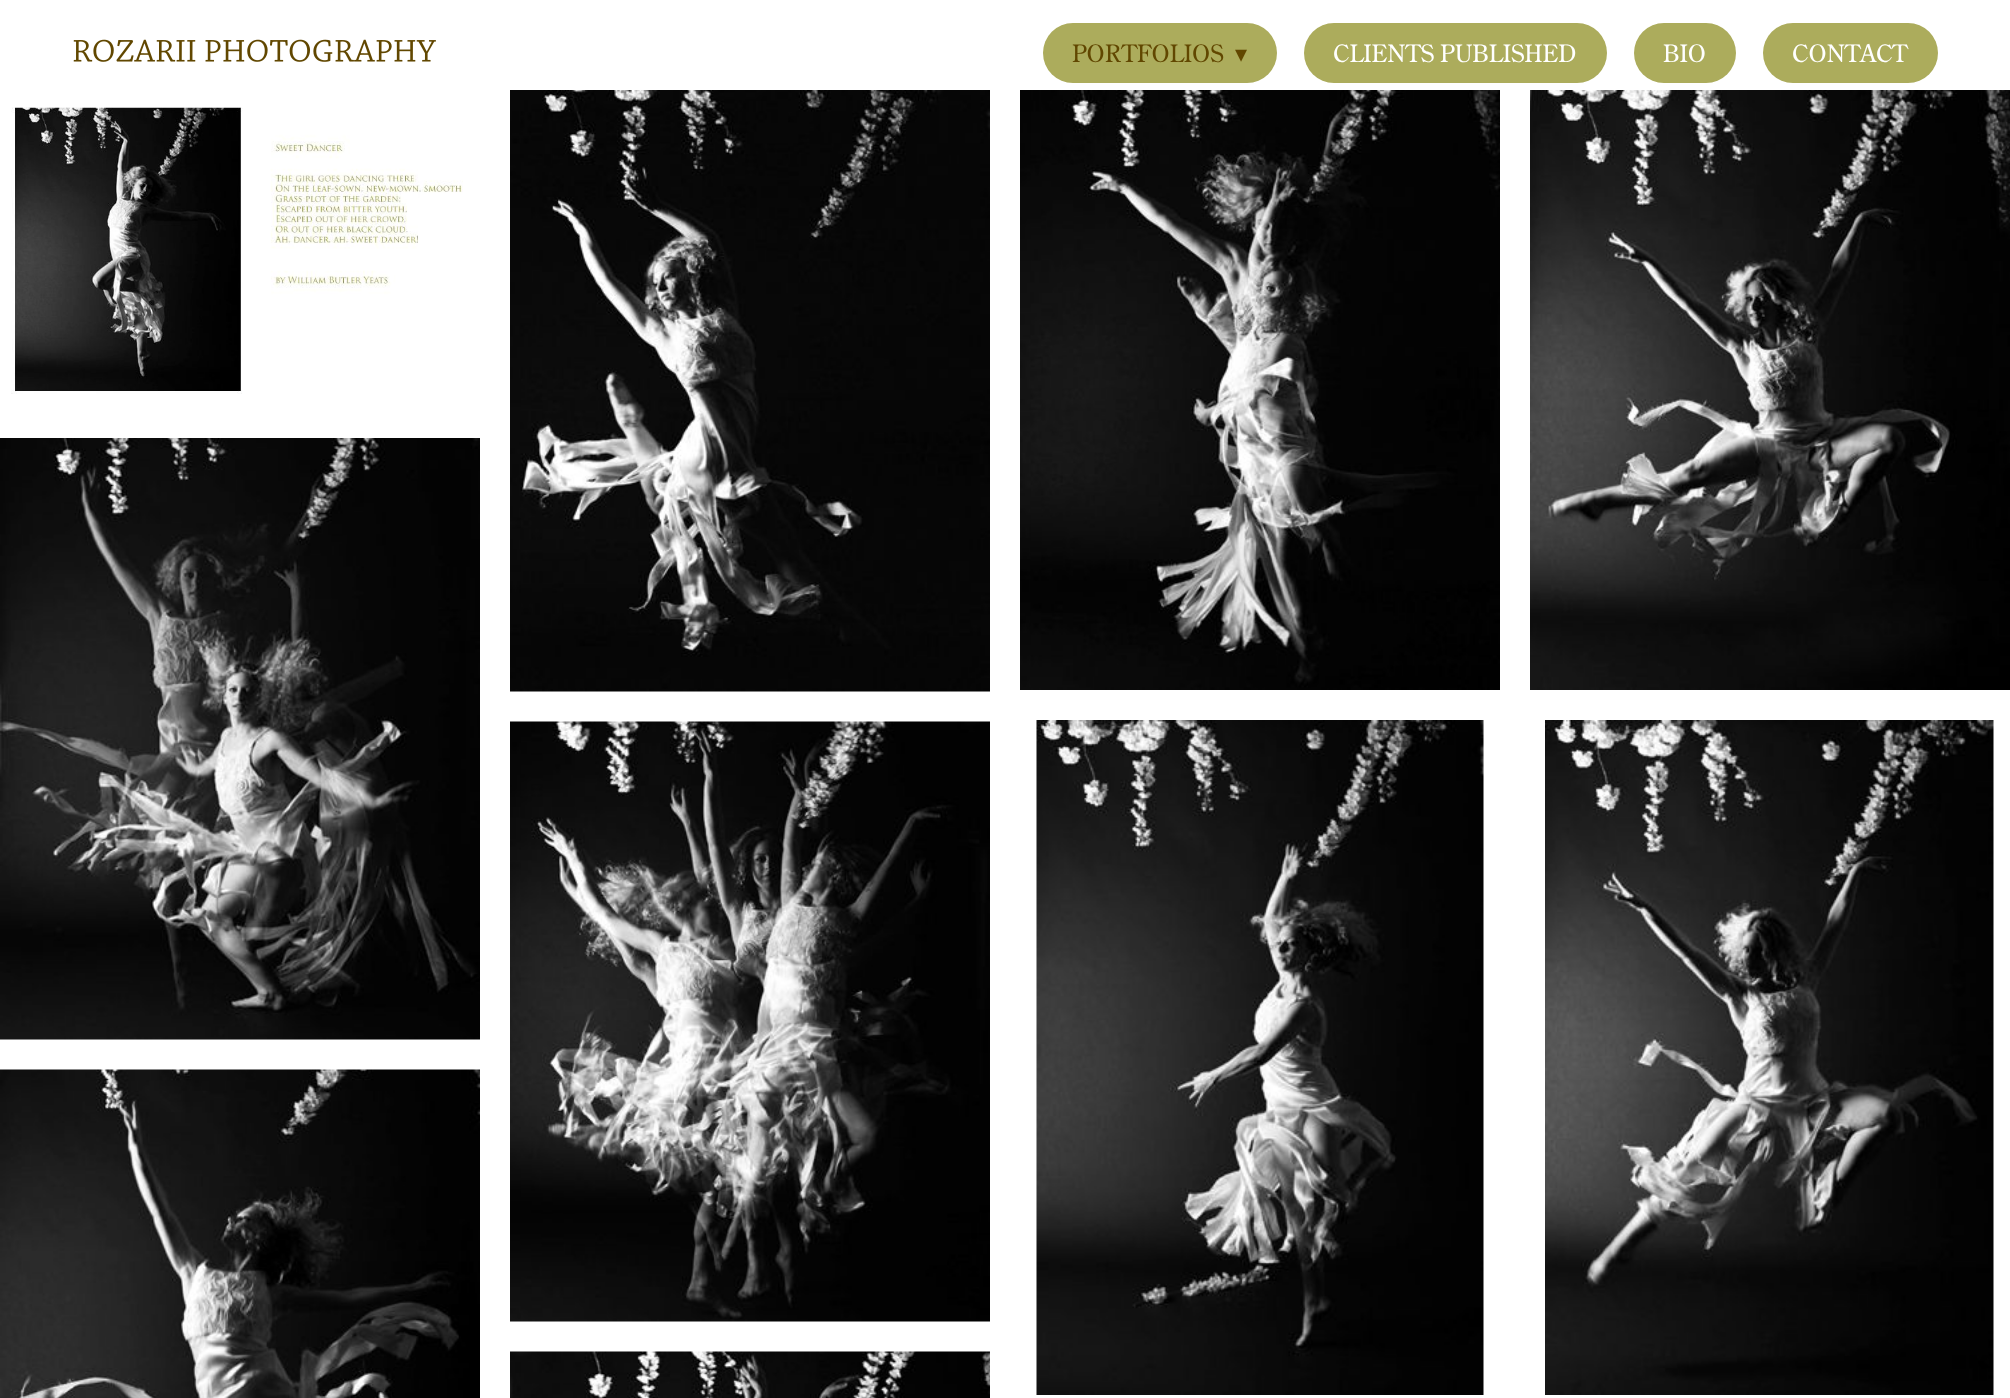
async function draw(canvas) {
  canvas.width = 2010
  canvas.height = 1398
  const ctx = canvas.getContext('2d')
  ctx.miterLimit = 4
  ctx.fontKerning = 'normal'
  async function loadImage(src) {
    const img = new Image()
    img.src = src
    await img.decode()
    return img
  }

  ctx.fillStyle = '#fff'
  ctx.fillRect(0, 0, 2010, 1398)
  ctx.drawImage(await loadImage('image0.png'), 73, 39, 363, 23)
  ctx.fillStyle = '#acac5c'
  ctx.beginPath()
  ctx.roundRect(1043, 23, 234, 60, 30)
  ctx.fill()
  ctx.font = '24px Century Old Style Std'
  ctx.fillStyle = '#614700'
  ctx.fillText('PORTFOLIOS', 1072, 62)
  ctx.font = '24px DejaVu Sans'
  ctx.fillText('▾', 1235, 62)
  ctx.fillStyle = '#acac5c'
  ctx.beginPath()
  ctx.roundRect(1304, 23, 303, 60, 30)
  ctx.fill()
  ctx.font = '24px Century Old Style Std'
  ctx.fillStyle = '#fff'
  ctx.fillText('CLIENTS PUBLISHED', 1333, 62)
  ctx.fillStyle = '#acac5c'
  ctx.beginPath()
  ctx.roundRect(1634, 23, 102, 60, 30)
  ctx.fill()
  ctx.fillStyle = '#fff'
  ctx.fillText('BIO', 1663, 62)
  ctx.fillStyle = '#acac5c'
  ctx.beginPath()
  ctx.roundRect(1763, 23, 175, 60, 30)
  ctx.fill()
  ctx.fillStyle = '#fff'
  ctx.fillText('CONTACT', 1792, 62)
  ctx.drawImage(await loadImage('image1.png'), 11, 107, 452, 287)
  ctx.drawImage(await loadImage('image2.png'), 510, 90, 480, 602)
  ctx.drawImage(await loadImage('image3.png'), 1020, 90, 480, 600)
  ctx.drawImage(await loadImage('image4.png'), 1530, 90, 480, 600)
  ctx.drawImage(await loadImage('image5.png'), 0, 438, 480, 602)
  ctx.drawImage(await loadImage('image6.png'), 510, 721, 480, 601)
  ctx.drawImage(await loadImage('image7.png'), 1036, 720, 448, 675)
  ctx.drawImage(await loadImage('image8.png'), 1545, 720, 449, 675)
  ctx.drawImage(await loadImage('image9.png'), 0, 1069, 480, 329)
  ctx.drawImage(await loadImage('image10.png'), 510, 1351, 480, 47)
}

draw(document.querySelector('canvas'))
